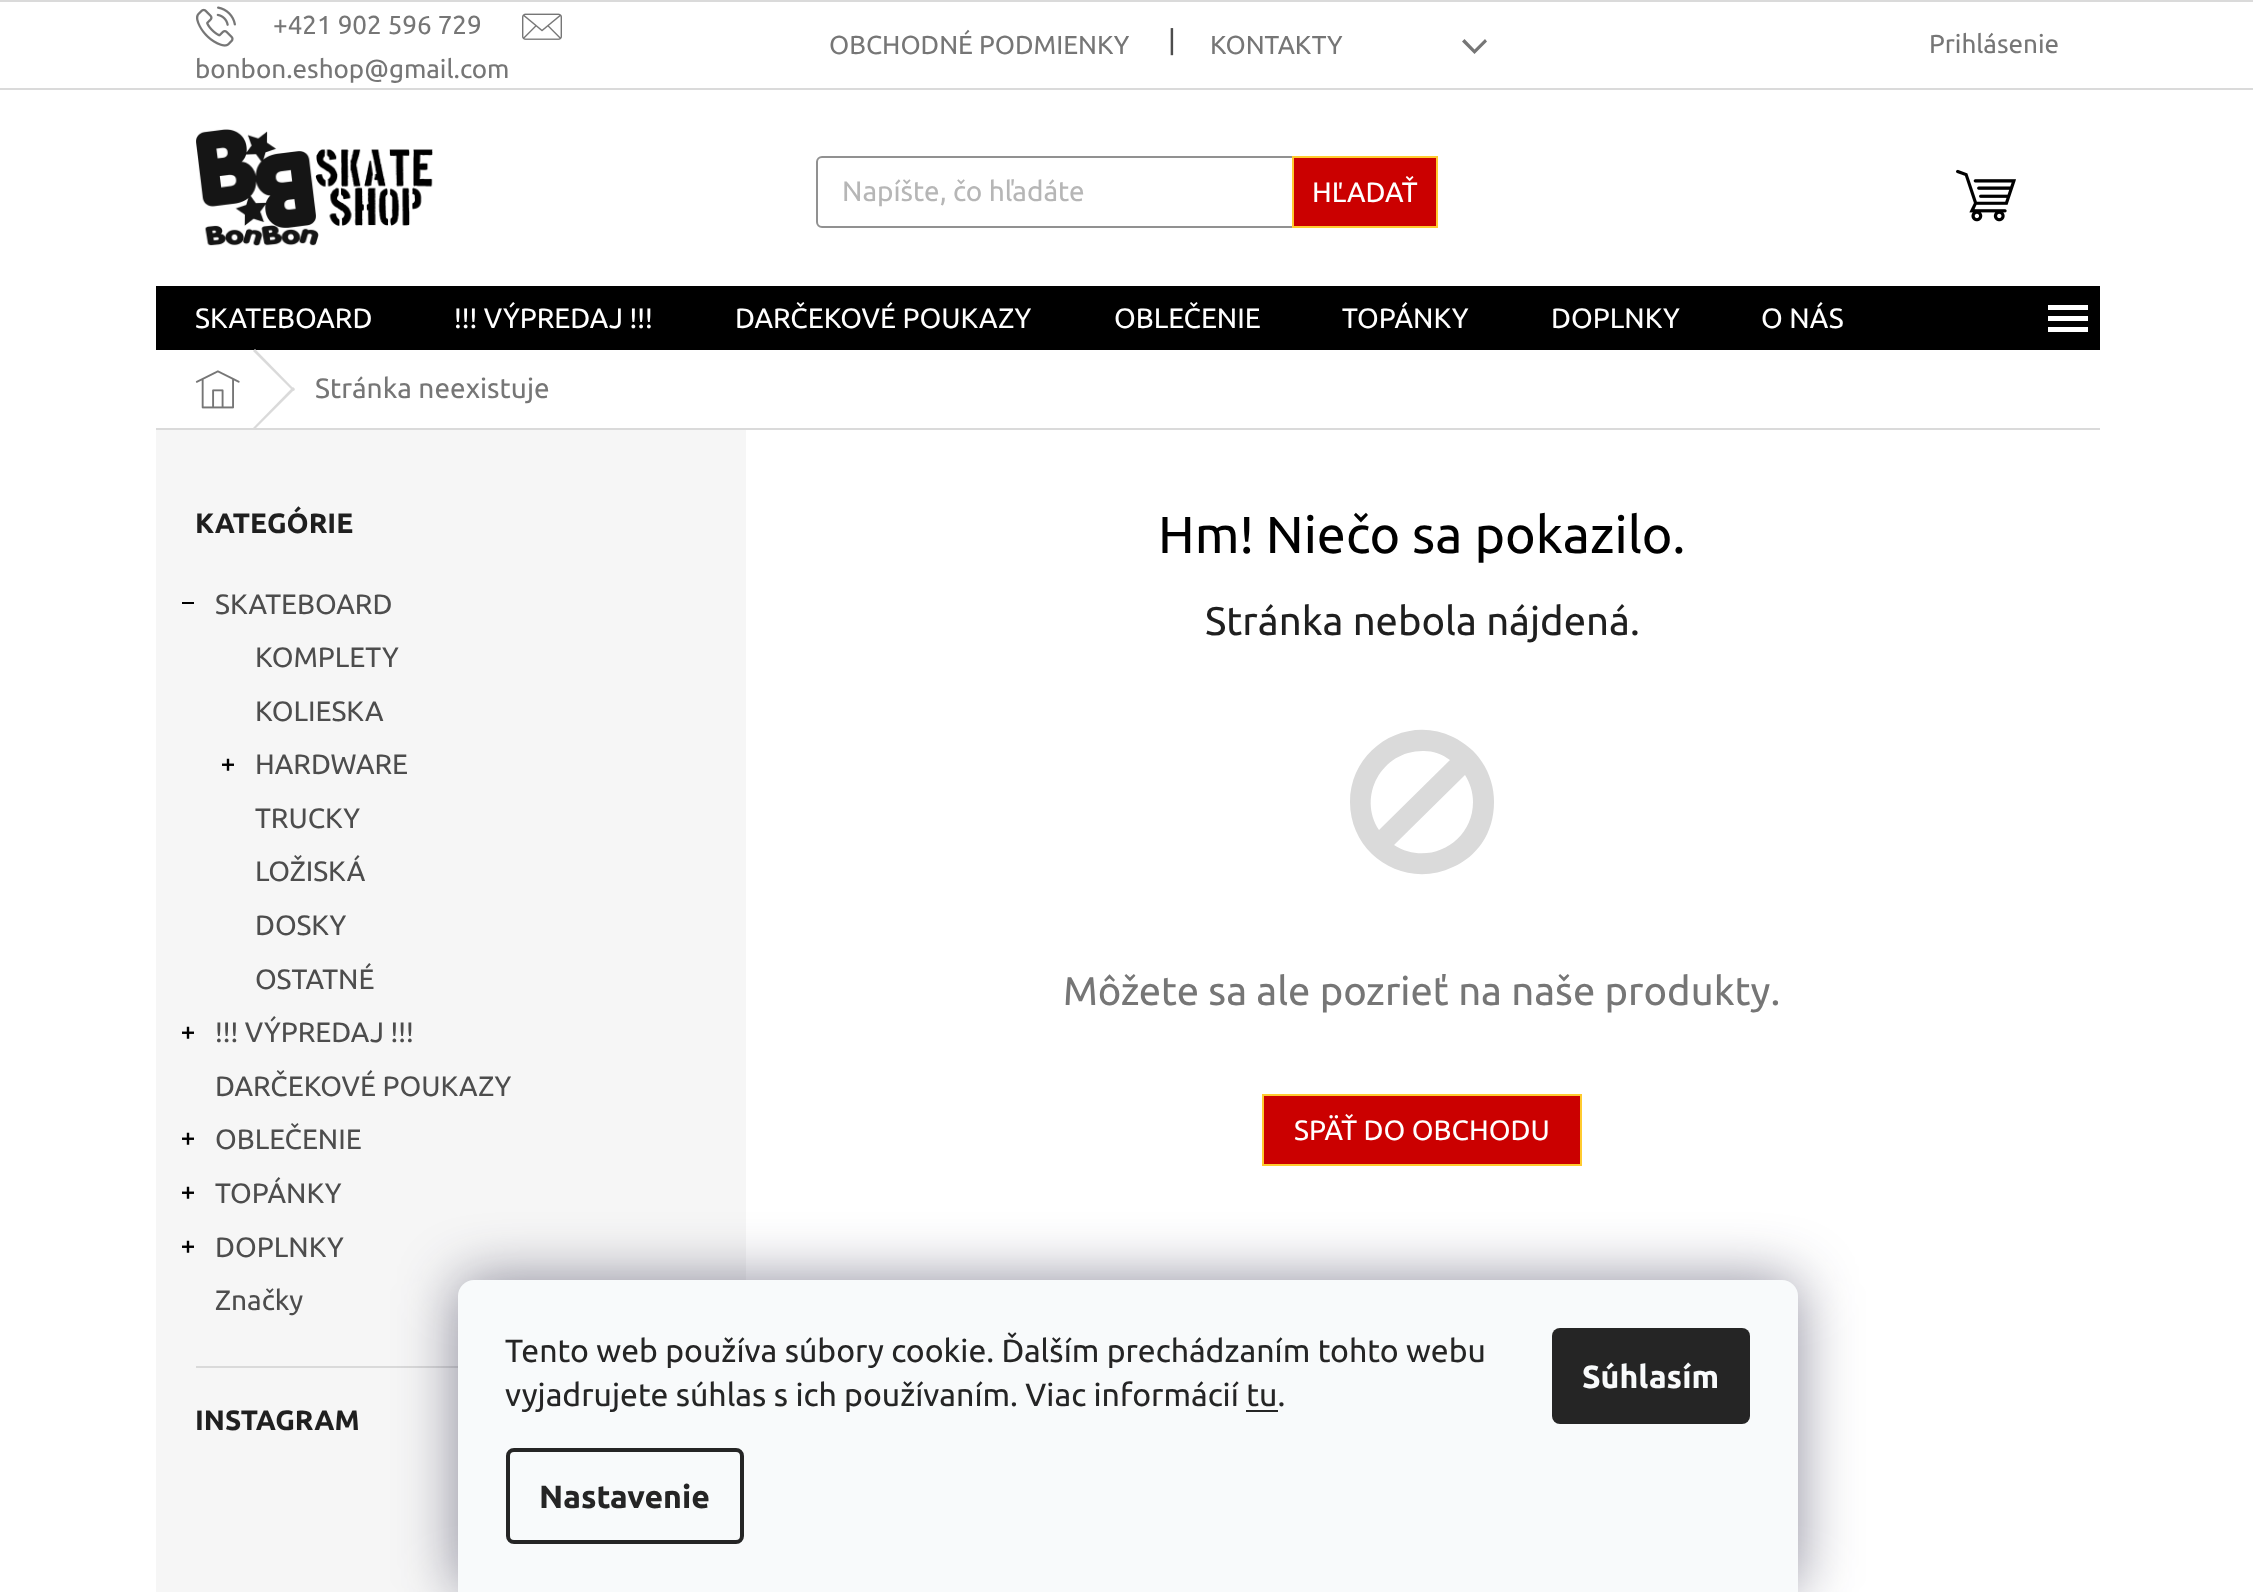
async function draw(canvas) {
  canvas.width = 2253
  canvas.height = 1592
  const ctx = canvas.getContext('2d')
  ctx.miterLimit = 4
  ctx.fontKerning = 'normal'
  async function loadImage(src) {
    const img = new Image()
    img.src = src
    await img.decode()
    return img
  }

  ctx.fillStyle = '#fff'
  ctx.fillRect(0, 0, 2253, 1592)
  ctx.fillStyle = '#dadada'
  ctx.fillRect(0, 0, 2253, 2)
  ctx.fillRect(0, 88, 2253, 2)
  ctx.drawImage(await loadImage('image0.png'), 196, 6, 40, 41)
  ctx.font = '26px Ubuntu'
  ctx.fillStyle = '#767676'
  ctx.fillText('+421 902 596 729', 273, 34)
  ctx.drawImage(await loadImage('image1.png'), 522, 13, 40, 27)
  ctx.fillText('bonbon.eshop@gmail.com', 195, 78)
  ctx.fillText('OBCHODNÉ PODMIENKY', 829, 54)
  ctx.font = '28px Ubuntu'
  ctx.fillStyle = '#4d4d4d'
  ctx.fillText('|', 1168, 50)
  ctx.font = '26px Ubuntu'
  ctx.fillStyle = '#767676'
  ctx.fillText('KONTAKTY', 1210, 54)
  ctx.beginPath()
  ctx.moveTo(1462, 41.5)
  ctx.lineTo(1464.5, 39)
  ctx.lineTo(1474.5, 49.5)
  ctx.lineTo(1485, 39)
  ctx.lineTo(1487, 41.5)
  ctx.lineTo(1474.5, 54)
  ctx.closePath()
  ctx.fill()
  ctx.fillText('Prihlásenie', 1929, 53)
  ctx.drawImage(await loadImage('image2.png'), 196, 129, 237, 117)
  ctx.beginPath()
  ctx.roundRect(817, 157, 620, 70, 5)
  ctx.strokeStyle = '#919191'
  ctx.lineWidth = 2
  ctx.stroke()
  ctx.font = '28px Ubuntu'
  ctx.fillStyle = '#b6b6b6'
  ctx.fillText('Napíšte, čo hľadáte', 842, 201)
  ctx.fillStyle = '#cb0000'
  ctx.beginPath()
  ctx.rect(1293, 157, 144, 70)
  ctx.fill()
  ctx.strokeStyle = '#ffcb2f'
  ctx.stroke()
  ctx.fillStyle = '#fff'
  ctx.fillText('HĽADAŤ', 1312, 202)
  ctx.drawImage(await loadImage('image3.png'), 1956, 169, 60, 53)
  ctx.fillStyle = '#000'
  ctx.fillRect(156, 286, 1944, 64)
  ctx.fillStyle = '#fff'
  ctx.fillText('SKATEBOARD', 195, 328)
  ctx.fillText('!!! VÝPREDAJ !!!', 454, 328)
  ctx.fillText('DARČEKOVÉ POUKAZY', 735, 328)
  ctx.fillText('OBLEČENIE', 1114, 328)
  ctx.fillText('TOPÁNKY', 1342, 328)
  ctx.fillText('DOPLNKY', 1551, 328)
  ctx.fillText('O NÁS', 1761, 328)
  ctx.beginPath()
  ctx.moveTo(2048, 332)
  ctx.lineTo(2088, 332)
  ctx.lineTo(2088, 327)
  ctx.lineTo(2048, 327)
  ctx.closePath()
  ctx.moveTo(2048, 321)
  ctx.lineTo(2088, 321)
  ctx.lineTo(2088, 316)
  ctx.lineTo(2048, 316)
  ctx.closePath()
  ctx.moveTo(2048, 305)
  ctx.lineTo(2048, 310)
  ctx.lineTo(2088, 310)
  ctx.lineTo(2088, 305)
  ctx.closePath()
  ctx.fill()
  ctx.fillStyle = '#dadada'
  ctx.fillRect(156, 428, 1944, 2)
  ctx.drawImage(await loadImage('image4.png'), 195, 370, 45, 39)
  ctx.beginPath()
  ctx.moveTo(253, 351)
  ctx.lineTo(255, 349)
  ctx.lineTo(295, 390)
  ctx.lineTo(293, 391)
  ctx.closePath()
  ctx.fill()
  ctx.beginPath()
  ctx.moveTo(293, 387)
  ctx.lineTo(295, 389)
  ctx.lineTo(255, 429)
  ctx.lineTo(253, 428)
  ctx.closePath()
  ctx.fill()
  ctx.fillStyle = '#767676'
  ctx.fillText('Stránka neexistuje', 315, 398)
  ctx.fillStyle = '#f6f6f6'
  ctx.fillRect(156, 430, 590, 1162)
  ctx.fillStyle = '#dadada'
  ctx.fillRect(196, 1366, 262, 2)
  ctx.font = 'bold 28px Ubuntu'
  ctx.fillStyle = '#1f1f1f'
  ctx.fillText('KATEGÓRIE', 195, 533)
  ctx.fillStyle = '#000'
  ctx.fillRect(182, 602, 12, 2)
  ctx.font = '28px Ubuntu'
  ctx.fillStyle = '#4d4d4d'
  ctx.fillText('SKATEBOARD', 215, 614)
  ctx.fillText('KOMPLETY', 255, 667)
  ctx.fillText('KOLIESKA', 255, 721)
  ctx.drawImage(await loadImage('image5.png'), 222, 758, 12, 13)
  ctx.fillText('HARDWARE', 255, 774)
  ctx.fillText('TRUCKY', 255, 828)
  ctx.fillText('LOŽISKÁ', 255, 881)
  ctx.fillText('DOSKY', 255, 935)
  ctx.fillText('OSTATNÉ', 255, 989)
  ctx.drawImage(await loadImage('image5.png'), 182, 1026, 12, 13)
  ctx.fillText('!!! VÝPREDAJ !!!', 215, 1042)
  ctx.fillText('DARČEKOVÉ POUKAZY', 215, 1096)
  ctx.drawImage(await loadImage('image5.png'), 182, 1132, 12, 13)
  ctx.fillText('OBLEČENIE', 215, 1149)
  ctx.drawImage(await loadImage('image5.png'), 182, 1186, 12, 13)
  ctx.fillText('TOPÁNKY', 215, 1203)
  ctx.drawImage(await loadImage('image5.png'), 182, 1240, 12, 13)
  ctx.fillText('DOPLNKY', 215, 1257)
  ctx.fillText('Značky', 215, 1310)
  ctx.font = 'bold 28px Ubuntu'
  ctx.fillStyle = '#1f1f1f'
  ctx.fillText('INSTAGRAM', 195, 1430)
  ctx.font = '52px Ubuntu'
  ctx.fillStyle = '#000'
  ctx.fillText('Hm! Niečo sa pokazilo.', 1158, 553)
  ctx.font = '40px Ubuntu'
  ctx.fillStyle = '#1f1f1f'
  ctx.fillText('Stránka nebola nájdená.', 1205, 635)
  ctx.fillStyle = '#dadada'
  ctx.beginPath()
  ctx.moveTo(1473, 802)
  ctx.bezierCurveTo(1473, 792, 1470, 783, 1465, 775)
  ctx.lineTo(1394, 845)
  ctx.bezierCurveTo(1428, 867, 1473, 843, 1473, 802)
  ctx.closePath()
  ctx.moveTo(1379, 830)
  ctx.lineTo(1450, 760)
  ctx.bezierCurveTo(1442, 754, 1433, 751, 1424, 751)
  ctx.bezierCurveTo(1382, 750, 1357, 796, 1379, 830)
  ctx.closePath()
  ctx.moveTo(1494, 802)
  ctx.bezierCurveTo(1494, 817, 1490, 831, 1482, 843)
  ctx.bezierCurveTo(1475, 853, 1465, 862, 1453, 867)
  ctx.bezierCurveTo(1405, 890, 1350, 855, 1350, 802)
  ctx.bezierCurveTo(1350, 749, 1406, 714, 1453, 737)
  ctx.bezierCurveTo(1465, 743, 1475, 751, 1482, 762)
  ctx.bezierCurveTo(1490, 774, 1494, 788, 1494, 802)
  ctx.closePath()
  ctx.fill()
  ctx.fillStyle = '#767676'
  ctx.fillText('Môžete sa ale pozrieť na naše produkty.', 1063, 1005)
  ctx.fillStyle = '#cb0000'
  ctx.beginPath()
  ctx.rect(1263, 1095, 318, 70)
  ctx.fill()
  ctx.stroke()
  ctx.font = '28px Ubuntu'
  ctx.fillStyle = '#fff'
  ctx.fillText('SPÄŤ DO OBCHODU', 1294, 1140)
  ctx.fillStyle = '#1b193980'
  ctx.filter = 'blur(30px)'
  ctx.beginPath()
  ctx.roundRect(458, 1280, 1340, 312, 16)
  ctx.fill()
  ctx.filter = 'none'
  ctx.fillStyle = '#f8fafb'
  ctx.beginPath()
  ctx.roundRect(458, 1280, 1340, 312, [16, 16, 0, 0])
  ctx.fill()
  ctx.font = '32px Ubuntu'
  ctx.fillStyle = '#252525'
  ctx.fillText('Tento web používa súbory cookie. Ďalším prechádzaním tohto webu', 505, 1362)
  ctx.fillText('vyjadrujete súhlas s ich používaním. Viac informácií tu.', 505, 1406)
  ctx.fillRect(1246, 1410, 32, 2)
  ctx.beginPath()
  ctx.roundRect(508, 1450, 234, 92, 6)
  ctx.strokeStyle = '#252525'
  ctx.lineWidth = 4
  ctx.stroke()
  ctx.font = 'bold 32px Ubuntu'
  ctx.fillText('Nastavenie', 539, 1508)
  ctx.beginPath()
  ctx.roundRect(1552, 1328, 198, 96, 8)
  ctx.fill()
  ctx.fillStyle = '#f8fafb'
  ctx.fillText('Súhlasím', 1582, 1388)
}

draw(document.querySelector('canvas'))
